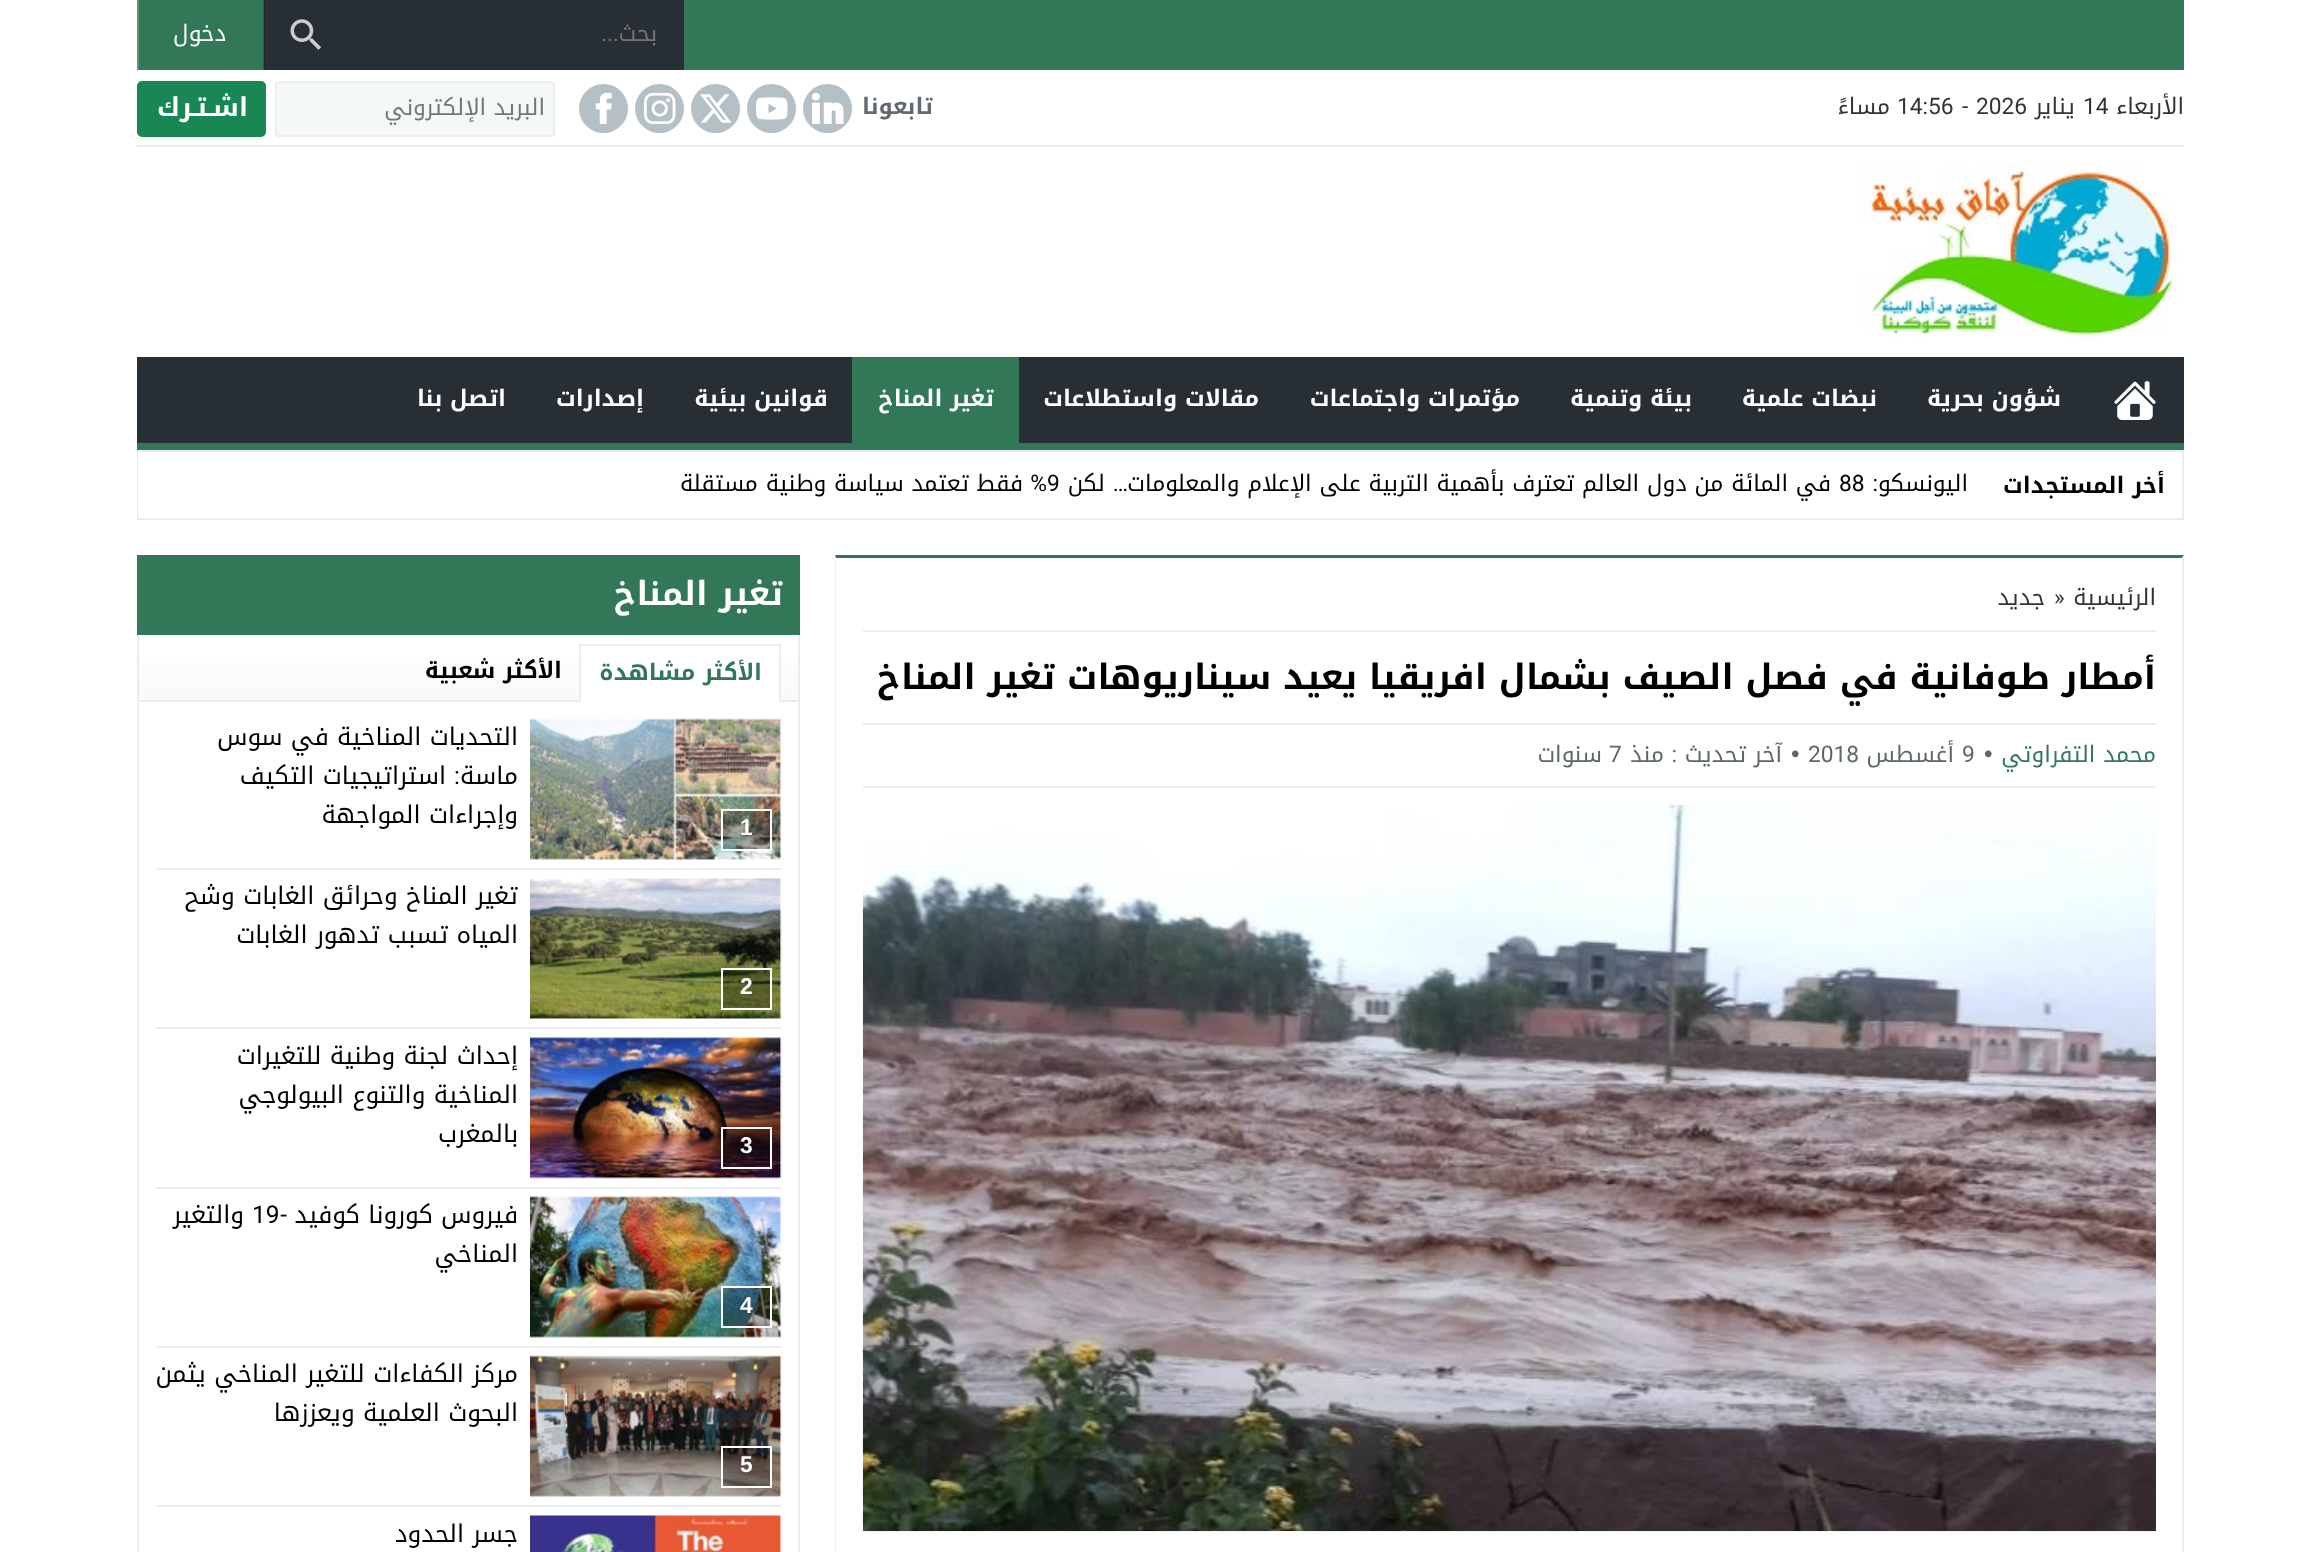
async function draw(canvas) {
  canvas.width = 2320
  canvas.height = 1552
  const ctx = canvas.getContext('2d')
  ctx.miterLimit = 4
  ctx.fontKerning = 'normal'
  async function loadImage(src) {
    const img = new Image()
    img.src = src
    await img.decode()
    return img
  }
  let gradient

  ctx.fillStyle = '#fff'
  ctx.fillRect(0, 0, 2320, 1552)
  ctx.fillStyle = '#327758'
  ctx.fillRect(139, 0, 2045, 70)
  ctx.fillStyle = '#285f46'
  ctx.fillRect(263, 0, 1, 70)
  ctx.fillStyle = '#272f34'
  ctx.fillRect(265, 0, 419, 70)
  ctx.fillStyle = '#1f262a'
  ctx.fillRect(264, 0, 1, 70)
  ctx.direction = 'rtl'
  ctx.font = '22.75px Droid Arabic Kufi'
  ctx.fillStyle = '#757575'
  ctx.fillText('بحث', 657, 41)
  ctx.font = '22.75px Roboto'
  ctx.fillText('...', 619, 41)
  ctx.drawImage(await loadImage('image0.png'), 290, 19, 31, 31)
  ctx.fillStyle = '#5b9279'
  ctx.fillRect(137, 0, 2, 70)
  ctx.font = '22.75px Droid Arabic Kufi'
  ctx.fillStyle = '#fff'
  ctx.fillText('دخول', 226, 41)
  ctx.fillStyle = '#e9edf0'
  ctx.fillRect(137, 145, 2047, 2)
  ctx.fillStyle = '#333'
  ctx.fillText('الأربعاء', 2184, 114)
  ctx.direction = 'ltr'
  ctx.font = '22.75px Roboto'
  ctx.fillText('14', 2083, 114)
  ctx.direction = 'rtl'
  ctx.font = '22.75px Droid Arabic Kufi'
  ctx.fillText('يناير', 2075, 114)
  ctx.direction = 'ltr'
  ctx.font = '22.75px Roboto'
  ctx.fillText('2026', 1976, 114)
  ctx.fillText('-', 1962, 114)
  ctx.fillText('14:56', 1897, 114)
  ctx.direction = 'rtl'
  ctx.font = '22.75px Droid Arabic Kufi'
  ctx.fillText('مساءً', 1890, 114)
  ctx.font = 'bold 22.75px Droid Arabic Kufi'
  ctx.fillStyle = '#646a72'
  ctx.fillText('تابعونا', 933, 114)
  ctx.fillStyle = '#b4bfc6'
  ctx.beginPath()
  ctx.arc(827.5, 108.5, 24.5, 0, 2 * Math.PI)
  ctx.fill()
  ctx.drawImage(await loadImage('image1.png'), 812, 93, 32, 31)
  ctx.beginPath()
  ctx.arc(771.5, 108.5, 24.5, 0, 2 * Math.PI)
  ctx.fill()
  ctx.drawImage(await loadImage('image2.png'), 756, 97, 32, 23)
  ctx.beginPath()
  ctx.arc(715.5, 108.5, 24.5, 0, 2 * Math.PI)
  ctx.fill()
  ctx.drawImage(await loadImage('image3.png'), 700, 94, 32, 29)
  ctx.beginPath()
  ctx.arc(659.5, 108.5, 24.5, 0, 2 * Math.PI)
  ctx.fill()
  ctx.drawImage(await loadImage('image4.png'), 644, 93, 32, 31)
  ctx.beginPath()
  ctx.arc(603.5, 108.5, 24.5, 0, 2 * Math.PI)
  ctx.fill()
  ctx.drawImage(await loadImage('image5.png'), 595, 93, 17, 31)
  ctx.fillStyle = '#f5f8f9'
  ctx.beginPath()
  ctx.roundRect(276, 82, 278, 54, 3)
  ctx.fill()
  ctx.strokeStyle = '#eee'
  ctx.lineWidth = 2
  ctx.stroke()
  ctx.font = '22.75px Droid Arabic Kufi'
  ctx.fillStyle = '#757575'
  ctx.fillText('البريد الإلكتروني', 545, 115)
  ctx.fillStyle = '#198754'
  ctx.beginPath()
  ctx.roundRect(138, 82, 127, 54, 4)
  ctx.fill()
  ctx.strokeStyle = '#198754'
  ctx.stroke()
  ctx.font = 'bold 26px Droid Arabic Kufi'
  ctx.fillStyle = '#fff'
  ctx.fillText('اشـتـرك', 248, 116)
  ctx.drawImage(await loadImage('image6.png'), 1860, 164, 324, 176)
  ctx.fillStyle = '#272f34'
  ctx.fillRect(137, 357, 2047, 86)
  ctx.fillStyle = '#327758'
  ctx.fillRect(137, 443, 2047, 7)
  ctx.drawImage(await loadImage('image7.png'), 2114, 381, 42, 39)
  ctx.font = 'bold 22.75px Droid Arabic Kufi'
  ctx.fillStyle = '#fff'
  ctx.fillText('شؤون بحرية', 2061, 406)
  ctx.fillText('نبضات علمية', 1877, 406)
  ctx.fillText('بيئة وتنمية', 1692, 406)
  ctx.fillText('مؤتمرات واجتماعات', 1520, 406)
  ctx.fillText('مقالات واستطلاعات', 1259, 406)
  ctx.fillStyle = '#327758'
  ctx.fillRect(852, 357, 167, 86)
  ctx.fillStyle = '#fff'
  ctx.fillText('تغير المناخ', 994, 406)
  ctx.fillText('قوانين بيئية', 828, 406)
  ctx.fillText('إصدارات', 644, 406)
  ctx.fillText('اتصل بنا', 506, 406)
  ctx.strokeStyle = '#e9edf0'
  ctx.strokeRect(138, 451, 2045, 68)
  ctx.fillStyle = '#000'
  ctx.fillText('أخر المستجدات', 2165, 493)
  ctx.font = '22.75px Droid Arabic Kufi'
  ctx.fillText('اليونسكو', 1968, 491)
  ctx.font = '22.75px Roboto'
  ctx.fillText(':', 1878, 491)
  ctx.direction = 'ltr'
  ctx.fillText('88', 1839, 491)
  ctx.direction = 'rtl'
  ctx.font = '22.75px Droid Arabic Kufi'
  ctx.fillText('في المائة من دول العالم تعترف بأهمية التربية على الإعلام والمعلومات', 1831, 491)
  ctx.font = '22.75px Roboto'
  ctx.fillText('…', 1128, 491)
  ctx.font = '22.75px Droid Arabic Kufi'
  ctx.fillText('لكن', 1105, 491)
  ctx.direction = 'ltr'
  ctx.font = '22.75px Roboto'
  ctx.fillText('9', 1047, 491)
  ctx.direction = 'rtl'
  ctx.fillText('%', 1047, 491)
  ctx.font = '22.75px Droid Arabic Kufi'
  ctx.fillText('فقط تعتمد سياسة وطنية مستقلة', 1023, 491)
  ctx.fillStyle = '#fff'
  ctx.fillRect(138, 452, 1, 66)
  ctx.fillStyle = '#327758'
  ctx.beginPath()
  ctx.moveTo(835, 555)
  ctx.lineTo(2184, 555)
  ctx.lineTo(2182, 558)
  ctx.lineTo(836, 558)
  ctx.closePath()
  ctx.fill()
  ctx.fillStyle = '#e9edf0'
  ctx.beginPath()
  ctx.moveTo(2184, 555)
  ctx.lineTo(2184, 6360)
  ctx.lineTo(2182, 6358)
  ctx.lineTo(2182, 558)
  ctx.closePath()
  ctx.fill()
  ctx.beginPath()
  ctx.moveTo(835, 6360)
  ctx.lineTo(835, 555)
  ctx.lineTo(836, 558)
  ctx.lineTo(836, 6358)
  ctx.closePath()
  ctx.fill()
  ctx.fillRect(863, 630, 1293, 2)
  ctx.fillStyle = '#333'
  ctx.fillText('الرئيسية', 2156, 605)
  ctx.direction = 'ltr'
  ctx.font = '22.75px Roboto'
  ctx.fillText('»', 2054, 605)
  ctx.direction = 'rtl'
  ctx.font = '22.75px Droid Arabic Kufi'
  ctx.fillText('جديد', 2045, 605)
  ctx.font = 'bold 35px Droid Arabic Kufi'
  ctx.fillStyle = '#000'
  ctx.fillText('أمطار طوفانية في فصل الصيف بشمال افريقيا يعيد سيناريوهات تغير المناخ', 2156, 689)
  ctx.fillStyle = '#e9edf0'
  ctx.fillRect(863, 723, 1293, 2)
  ctx.fillRect(863, 786, 1293, 2)
  ctx.font = '22.75px Droid Arabic Kufi'
  ctx.fillStyle = '#327758'
  ctx.fillText('محمد التفراوتي', 2156, 762)
  ctx.direction = 'ltr'
  ctx.font = '24.5px Liberation Sans'
  ctx.fillStyle = '#5d6769'
  ctx.fillText('•', 1984, 762)
  ctx.font = '22.75px Roboto'
  ctx.fillText('9', 1962, 762)
  ctx.direction = 'rtl'
  ctx.font = '22.75px Droid Arabic Kufi'
  ctx.fillText('أغسطس', 1954, 762)
  ctx.direction = 'ltr'
  ctx.font = '22.75px Roboto'
  ctx.fillText('2018', 1808, 762)
  ctx.font = '24.5px Liberation Sans'
  ctx.fillText('•', 1791, 762)
  ctx.direction = 'rtl'
  ctx.font = '22.75px Droid Arabic Kufi'
  ctx.fillText('آخر تحديث', 1782, 762)
  ctx.font = '22.75px Roboto'
  ctx.fillText(':', 1677, 762)
  ctx.font = '22.75px Droid Arabic Kufi'
  ctx.fillText('منذ', 1664, 762)
  ctx.direction = 'ltr'
  ctx.font = '22.75px Roboto'
  ctx.fillText('7', 1609, 762)
  ctx.direction = 'rtl'
  ctx.font = '22.75px Droid Arabic Kufi'
  ctx.fillText('سنوات', 1602, 762)
  ctx.drawImage(await loadImage('image8.png'), 862, 805, 1294, 727)
  ctx.fillStyle = '#327758'
  ctx.fillRect(137, 555, 663, 80)
  ctx.font = 'bold 33.25px Droid Arabic Kufi'
  ctx.fillStyle = '#fff'
  ctx.fillText('تغير المناخ', 783, 605)
  gradient = ctx.createLinearGradient(468, 635, 468, 700)
  gradient.addColorStop(0, '#fff')
  gradient.addColorStop(1, '#f9f9f9')
  ctx.fillStyle = gradient
  ctx.fillRect(139, 662, 659, 38)
  ctx.fillStyle = '#e9edf0'
  ctx.fillRect(798, 635, 2, 917)
  ctx.fillRect(137, 700, 663, 2)
  ctx.fillRect(137, 635, 2, 67)
  ctx.fillStyle = '#fff'
  ctx.fillRect(581, 662, 198, 40)
  ctx.fillStyle = '#e9edf0'
  ctx.fillRect(579, 644, 202, 2)
  ctx.fillRect(779, 644, 2, 58)
  ctx.fillRect(579, 644, 2, 58)
  ctx.font = 'bold 22.75px Droid Arabic Kufi'
  ctx.fillStyle = '#327758'
  ctx.fillText('الأكثر مشاهدة', 762, 680)
  ctx.fillStyle = '#000'
  ctx.fillText('الأكثر شعبية', 562, 678)
  ctx.fillStyle = '#e9edf0'
  ctx.fillRect(137, 702, 2, 850)
  ctx.fillRect(156, 868, 625, 2)
  ctx.drawImage(await loadImage('image9.png'), 530, 718, 252, 142)
  ctx.fillStyle = '#0000004d'
  ctx.beginPath()
  ctx.rect(722, 810, 49, 40)
  ctx.fill()
  ctx.strokeStyle = '#fff'
  ctx.stroke()
  ctx.direction = 'ltr'
  ctx.font = 'bold 22.75px Liberation Sans'
  ctx.fillStyle = '#fff'
  ctx.fillText('1', 740, 835)
  ctx.direction = 'rtl'
  ctx.font = '24.5px Droid Arabic Kufi'
  ctx.fillStyle = '#000'
  ctx.fillText('التحديات المناخية في سوس', 518, 745)
  ctx.fillText('ماسة', 518, 784)
  ctx.font = '24.5px Roboto'
  ctx.fillText(':', 460, 784)
  ctx.font = '24.5px Droid Arabic Kufi'
  ctx.fillText('استراتيجيات التكيف', 446, 784)
  ctx.fillText('وإجراءات المواجهة', 518, 823)
  ctx.fillStyle = '#e9edf0'
  ctx.fillRect(156, 1027, 625, 2)
  ctx.fillStyle = '#000'
  ctx.fillText('تغير المناخ وحرائق الغابات وشح', 518, 904)
  ctx.fillText('المياه تسبب تدهور الغابات', 518, 943)
  ctx.drawImage(await loadImage('image10.png'), 530, 878, 252, 141)
  ctx.fillStyle = '#0000004d'
  ctx.beginPath()
  ctx.rect(722, 969, 49, 40)
  ctx.fill()
  ctx.stroke()
  ctx.direction = 'ltr'
  ctx.font = 'bold 22.75px Liberation Sans'
  ctx.fillStyle = '#fff'
  ctx.fillText('2', 740, 994)
  ctx.fillStyle = '#e9edf0'
  ctx.fillRect(156, 1187, 625, 2)
  ctx.drawImage(await loadImage('image11.png'), 530, 1037, 252, 142)
  ctx.fillStyle = '#0000004d'
  ctx.beginPath()
  ctx.rect(722, 1128, 49, 40)
  ctx.fill()
  ctx.stroke()
  ctx.fillStyle = '#fff'
  ctx.fillText('3', 740, 1153)
  ctx.direction = 'rtl'
  ctx.font = '24.5px Droid Arabic Kufi'
  ctx.fillStyle = '#000'
  ctx.fillText('إحداث لجنة وطنية للتغيرات', 518, 1064)
  ctx.fillText('المناخية والتنوع البيولوجي', 518, 1103)
  ctx.fillText('بالمغرب', 518, 1142)
  ctx.fillStyle = '#e9edf0'
  ctx.fillRect(156, 1346, 625, 2)
  ctx.fillStyle = '#000'
  ctx.fillText('فيروس كورونا كوفيد', 518, 1223)
  ctx.font = '24.5px Roboto'
  ctx.fillText('-', 287, 1223)
  ctx.direction = 'ltr'
  ctx.fillText('19', 252, 1223)
  ctx.direction = 'rtl'
  ctx.font = '24.5px Droid Arabic Kufi'
  ctx.fillText('والتغير', 244, 1223)
  ctx.fillText('المناخي', 518, 1262)
  ctx.drawImage(await loadImage('image12.png'), 530, 1196, 252, 142)
  ctx.fillStyle = '#0000004d'
  ctx.beginPath()
  ctx.rect(722, 1287, 49, 40)
  ctx.fill()
  ctx.stroke()
  ctx.direction = 'ltr'
  ctx.font = 'bold 22.75px Liberation Sans'
  ctx.fillStyle = '#fff'
  ctx.fillText('4', 740, 1313)
  ctx.fillStyle = '#e9edf0'
  ctx.fillRect(156, 1505, 625, 2)
  ctx.direction = 'rtl'
  ctx.font = '24.5px Droid Arabic Kufi'
  ctx.fillStyle = '#000'
  ctx.fillText('مركز الكفاءات للتغير المناخي يثمن', 518, 1382)
  ctx.fillText('البحوث العلمية ويعززها', 518, 1421)
  ctx.drawImage(await loadImage('image13.png'), 530, 1355, 252, 142)
  ctx.fillStyle = '#0000004d'
  ctx.beginPath()
  ctx.rect(722, 1447, 49, 40)
  ctx.fill()
  ctx.stroke()
  ctx.direction = 'ltr'
  ctx.font = 'bold 22.75px Liberation Sans'
  ctx.fillStyle = '#fff'
  ctx.fillText('5', 740, 1472)
  ctx.drawImage(await loadImage('image14.png'), 530, 1515, 252, 37)
  ctx.direction = 'rtl'
  ctx.font = '24.5px Droid Arabic Kufi'
  ctx.fillStyle = '#000'
  ctx.fillText('جسر الحدود', 518, 1542)
}

draw(document.querySelector('canvas'))
